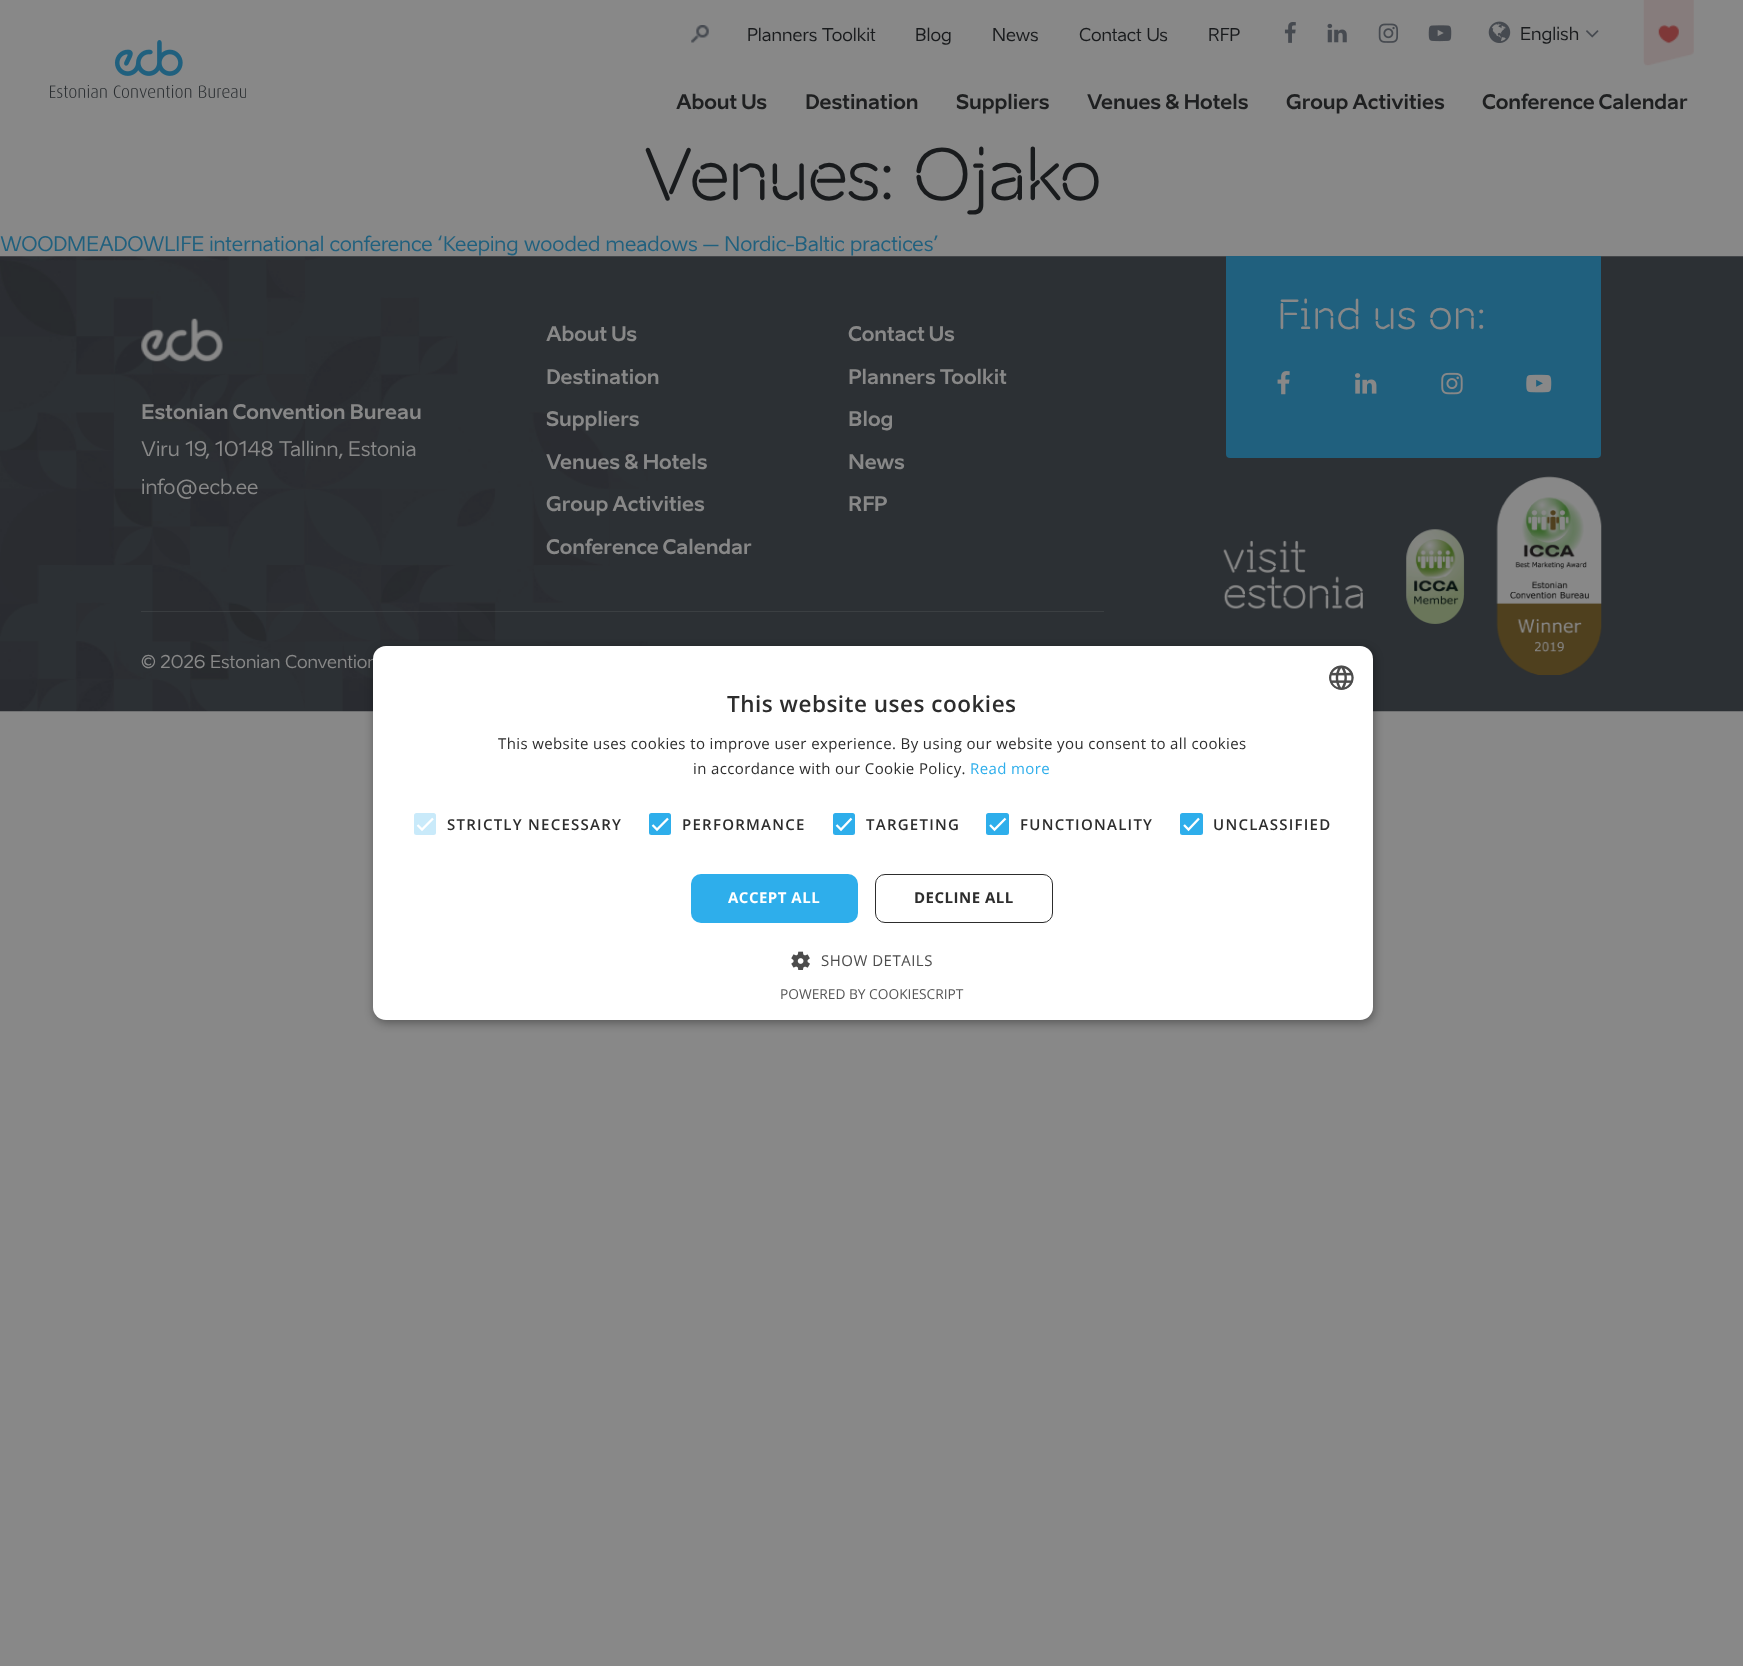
async function draw(canvas) {
  canvas.width = 1743
  canvas.height = 1666
  const ctx = canvas.getContext('2d')
  ctx.miterLimit = 4
  ctx.fontKerning = 'normal'
  async function loadImage(src) {
    const img = new Image()
    img.src = src
    await img.decode()
    return img
  }

  ctx.fillStyle = '#888'
  ctx.fillRect(0, 0, 1743, 1666)
  ctx.drawImage(await loadImage('image0.png'), 50, 40, 196, 58)
  ctx.drawImage(await loadImage('image1.png'), 691, 25, 18, 18)
  ctx.font = '17.5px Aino'
  ctx.fillStyle = '#191b1d'
  ctx.fillText('Planners Toolkit', 747, 41)
  ctx.fillText('Blog', 915, 41)
  ctx.fillText('News', 992, 41)
  ctx.fillText('Contact Us', 1079, 41)
  ctx.fillText('RFP', 1208, 41)
  ctx.drawImage(await loadImage('image2.png'), 1284, 22, 12, 21)
  ctx.drawImage(await loadImage('image3.png'), 1327, 23, 20, 20)
  ctx.drawImage(await loadImage('image4.png'), 1378, 23, 21, 20)
  ctx.drawImage(await loadImage('image5.png'), 1428, 25, 24, 17)
  ctx.drawImage(await loadImage('image6.png'), 1488, 21, 23, 22)
  ctx.fillText('English', 1520, 40)
  ctx.drawImage(await loadImage('image7.png'), 1586, 30, 13, 8)
  ctx.drawImage(await loadImage('image8.png'), 1643, 0, 51, 66)
  ctx.font = 'bold 20px Aino'
  ctx.fillStyle = '#1f2021'
  ctx.fillText('About Us', 676, 109)
  ctx.fillText('Destination', 805, 109)
  ctx.fillText('Suppliers', 956, 109)
  ctx.fillText('Venues & Hotels', 1087, 109)
  ctx.fillText('Group Activities', 1286, 109)
  ctx.fillText('Conference Calendar', 1482, 109)
  ctx.letterSpacing = '-2.3px'
  ctx.font = '500 70px Aino'
  ctx.fillStyle = '#191b1d'
  ctx.fillText('Venues: Ojako', 643, 200)
  ctx.letterSpacing = '0px'
  ctx.font = '20px Aino'
  ctx.fillStyle = '#20607e'
  ctx.fillText('WOODMEADOWLIFE international conference ‘Keeping wooded meadows – Nordic-Baltic practices’', 0, 251)
  ctx.drawImage(await loadImage('image9.png'), 0, 256, 1743, 456)
  ctx.beginPath()
  ctx.roundRect(1226, 256, 375, 202, [0, 0, 4, 4])
  ctx.fill()
  ctx.font = '500 40px Aino'
  ctx.fillStyle = '#888'
  ctx.fillText('Find us on:', 1277, 329)
  ctx.drawImage(await loadImage('image10.png'), 1277, 371, 13, 24)
  ctx.drawImage(await loadImage('image11.png'), 1355, 373, 22, 21)
  ctx.drawImage(await loadImage('image12.png'), 1441, 372, 22, 23)
  ctx.drawImage(await loadImage('image13.png'), 1526, 374, 26, 19)
  ctx.drawImage(await loadImage('image14.png'), 1223, 540, 140, 69)
  ctx.drawImage(await loadImage('image15.png'), 1406, 476, 196, 199)
  ctx.drawImage(await loadImage('image16.png'), 141, 318, 82, 44)
  ctx.font = 'bold 20px Aino'
  ctx.fillText('Estonian Convention Bureau', 141, 419)
  ctx.font = '20px Aino'
  ctx.fillText('Viru 19, 10148 Tallinn, Estonia', 141, 456)
  ctx.fillText('info@ecb.ee', 141, 494)
  ctx.font = 'bold 20px Aino'
  ctx.fillText('About Us', 546, 341)
  ctx.fillText('Destination', 546, 384)
  ctx.fillText('Suppliers', 546, 426)
  ctx.fillText('Venues & Hotels', 546, 469)
  ctx.fillText('Group Activities', 546, 511)
  ctx.fillText('Conference Calendar', 546, 554)
  ctx.fillText('Contact Us', 848, 341)
  ctx.fillText('Planners Toolkit', 848, 384)
  ctx.fillText('Blog', 848, 426)
  ctx.fillText('News', 848, 469)
  ctx.fillText('RFP', 848, 511)
  ctx.fillStyle = '#7a7c7c33'
  ctx.fillRect(141, 611, 963, 1)
  ctx.font = '17.5px Aino'
  ctx.fillStyle = '#888'
  ctx.fillText('© 2026 Estonian Convention', 141, 668)
  ctx.fillStyle = '#00000059'
  ctx.filter = 'blur(5px)'
  ctx.beginPath()
  ctx.roundRect(374, 649, 1000, 374, 13)
  ctx.fill()
  ctx.filter = 'none'
  ctx.fillStyle = '#fff'
  ctx.beginPath()
  ctx.roundRect(373, 646, 1000, 374, 13)
  ctx.fill()
  ctx.drawImage(await loadImage('image17.png'), 1329, 665, 25, 25)
  ctx.letterSpacing = '0.5px'
  ctx.font = '600 22.5px Open Sans'
  ctx.fillStyle = '#2d2d2d'
  ctx.fillText('This website uses cookies', 727, 712)
  ctx.letterSpacing = '0.38px'
  ctx.font = '15px Open Sans'
  ctx.fillText('This website uses cookies to improve user experience. By using our website you consent to all cookies', 498, 749)
  ctx.fillText('in accordance with our Cookie Policy.', 693, 774)
  ctx.fillStyle = '#2eaeeb'
  ctx.fillText('Read more', 970, 774)
  ctx.fillStyle = '#c9eafa'
  ctx.beginPath()
  ctx.roundRect(414, 813, 22, 22, 2.5)
  ctx.fill()
  ctx.beginPath()
  ctx.moveTo(417.5, 825)
  ctx.lineTo(422, 829.5)
  ctx.lineTo(433, 818.5)
  ctx.strokeStyle = '#fff'
  ctx.lineWidth = 2.3
  ctx.stroke()
  ctx.letterSpacing = '1.25px'
  ctx.font = '600 15px Open Sans'
  ctx.fillStyle = '#2d2d2d'
  ctx.fillText('STRICTLY NECESSARY', 447, 830)
  ctx.fillStyle = '#2eaeeb'
  ctx.beginPath()
  ctx.roundRect(650.5, 814.5, 19, 19, 1)
  ctx.fill()
  ctx.strokeStyle = '#2eaeeb'
  ctx.lineWidth = 3
  ctx.stroke()
  ctx.beginPath()
  ctx.moveTo(652.5, 825)
  ctx.lineTo(657, 829.5)
  ctx.lineTo(668, 818.5)
  ctx.strokeStyle = '#fff'
  ctx.lineWidth = 2.3
  ctx.stroke()
  ctx.fillStyle = '#2d2d2d'
  ctx.fillText('PERFORMANCE', 682, 830)
  ctx.fillStyle = '#2eaeeb'
  ctx.beginPath()
  ctx.roundRect(834.5, 814.5, 19, 19, 1)
  ctx.fill()
  ctx.strokeStyle = '#2eaeeb'
  ctx.lineWidth = 3
  ctx.stroke()
  ctx.beginPath()
  ctx.moveTo(836.5, 825)
  ctx.lineTo(841, 829.5)
  ctx.lineTo(851.5, 818.5)
  ctx.strokeStyle = '#fff'
  ctx.lineWidth = 2.3
  ctx.stroke()
  ctx.fillStyle = '#2d2d2d'
  ctx.fillText('TARGETING', 866, 830)
  ctx.fillStyle = '#2eaeeb'
  ctx.beginPath()
  ctx.roundRect(987.5, 814.5, 20, 19, 1)
  ctx.fill()
  ctx.strokeStyle = '#2eaeeb'
  ctx.lineWidth = 3
  ctx.stroke()
  ctx.beginPath()
  ctx.moveTo(990, 825)
  ctx.lineTo(994.5, 829.5)
  ctx.lineTo(1005.5, 818.5)
  ctx.strokeStyle = '#fff'
  ctx.lineWidth = 2.3
  ctx.stroke()
  ctx.fillStyle = '#2d2d2d'
  ctx.fillText('FUNCTIONALITY', 1020, 830)
  ctx.fillStyle = '#2eaeeb'
  ctx.beginPath()
  ctx.roundRect(1181.5, 814.5, 20, 19, 1)
  ctx.fill()
  ctx.strokeStyle = '#2eaeeb'
  ctx.lineWidth = 3
  ctx.stroke()
  ctx.beginPath()
  ctx.moveTo(1184, 825)
  ctx.lineTo(1188.5, 829.5)
  ctx.lineTo(1199, 818.5)
  ctx.strokeStyle = '#fff'
  ctx.lineWidth = 2.3
  ctx.stroke()
  ctx.fillStyle = '#2d2d2d'
  ctx.fillText('UNCLASSIFIED', 1213, 830)
  ctx.fillStyle = '#2eaeeb'
  ctx.beginPath()
  ctx.roundRect(691, 874, 167, 49, 10)
  ctx.fill()
  ctx.letterSpacing = '0.5px'
  ctx.font = 'bold 15px Open Sans'
  ctx.fillStyle = '#fff'
  ctx.fillText('ACCEPT ALL', 728, 903)
  ctx.beginPath()
  ctx.roundRect(875.5, 874.5, 177, 48, 9.5)
  ctx.strokeStyle = '#2d2d2d'
  ctx.lineWidth = 1
  ctx.stroke()
  ctx.fillStyle = '#2d2d2d'
  ctx.fillText('DECLINE ALL', 914, 903)
  ctx.drawImage(await loadImage('image18.png'), 791, 951, 19, 19)
  ctx.font = '15px Open Sans'
  ctx.fillStyle = '#4d4d4d'
  ctx.fillText('SHOW DETAILS', 821, 966)
  ctx.letterSpacing = '0px'
  ctx.font = '13.75px Open Sans'
  ctx.fillStyle = '#575757'
  ctx.fillText('POWERED BY COOKIESCRIPT', 780, 999)
}

draw(document.querySelector('canvas'))
